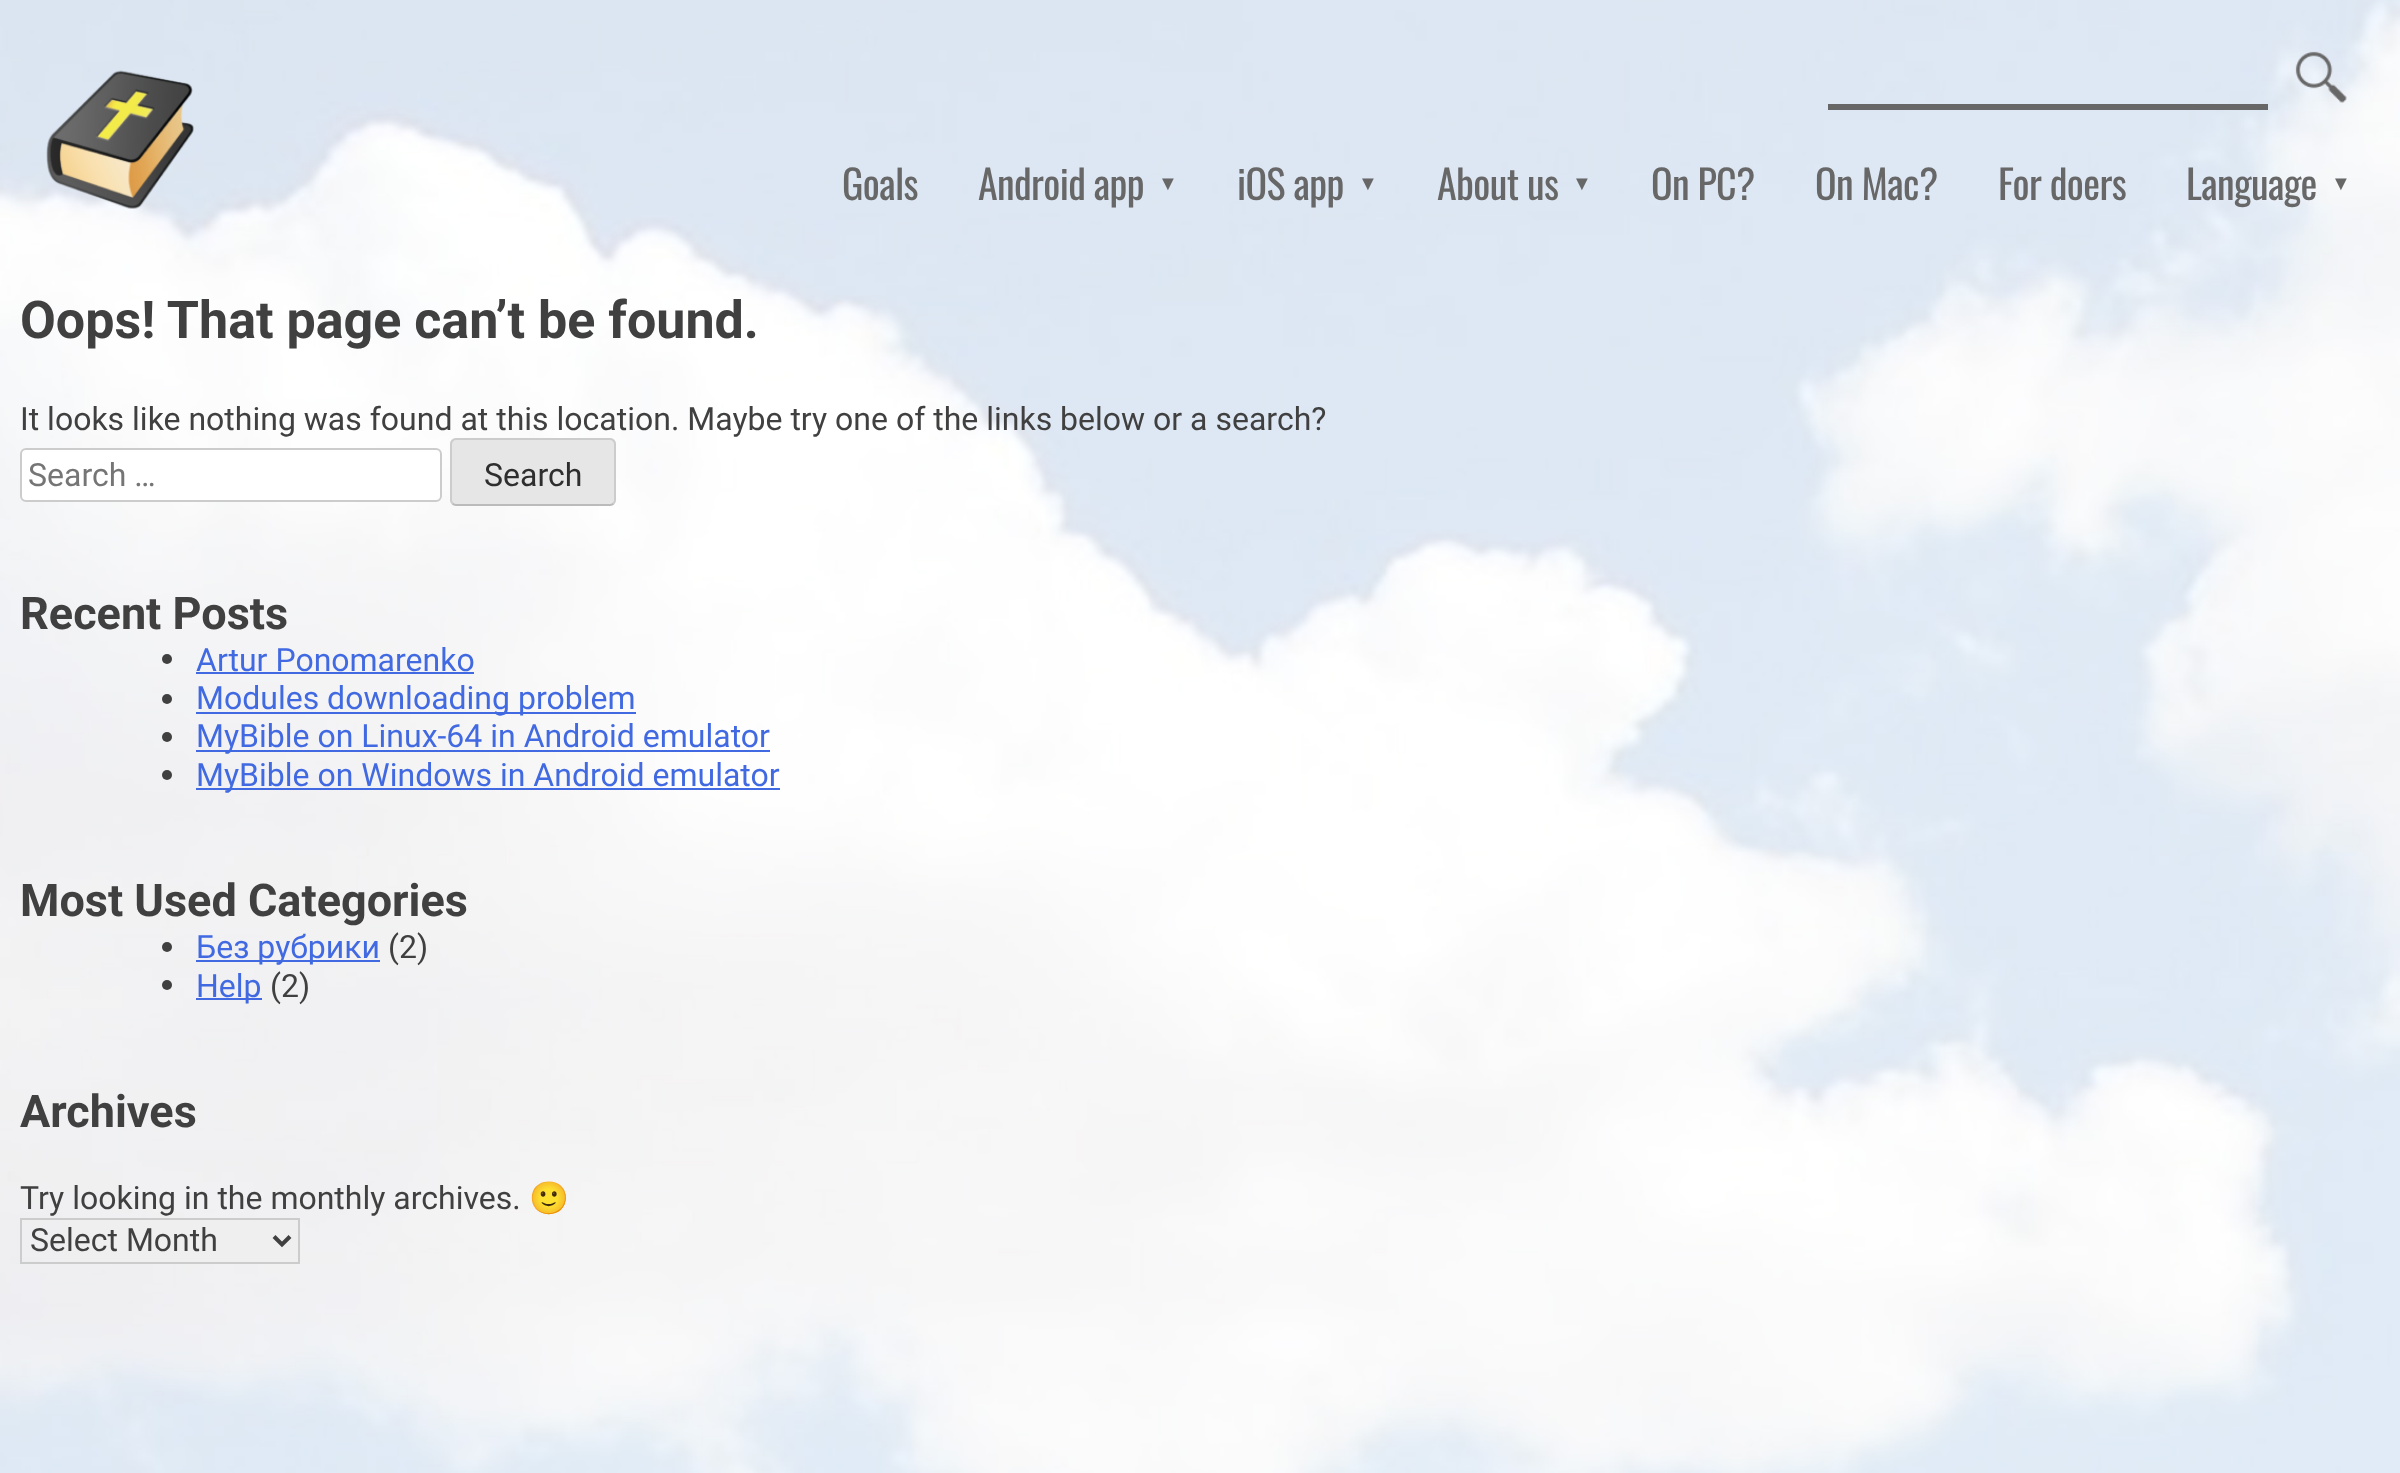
async function draw(canvas) {
  canvas.width = 2400
  canvas.height = 1473
  const ctx = canvas.getContext('2d')
  ctx.miterLimit = 4
  ctx.fontKerning = 'normal'
  async function loadImage(src) {
    const img = new Image()
    img.src = src
    await img.decode()
    return img
  }

  ctx.fillStyle = '#fff'
  ctx.fillRect(0, 0, 2400, 1473)
  ctx.drawImage(await loadImage('image0.png'), 0, 0, 2400, 1473)
  ctx.drawImage(await loadImage('image1.png'), 46, 69, 148, 140)
  ctx.drawImage(await loadImage('image2.png'), 2295, 51, 52, 52)
  ctx.fillStyle = '#676767'
  ctx.fillRect(1828, 104, 440, 6)
  ctx.letterSpacing = '-0.6px'
  ctx.font = '40px Oswald'
  ctx.fillText('Goals', 842, 200)
  ctx.fillText('Android app', 978, 200)
  ctx.font = '20px Liberation Sans'
  ctx.fillText('▼', 1158, 190)
  ctx.font = '40px Oswald'
  ctx.fillText('iOS app', 1237, 200)
  ctx.font = '20px Liberation Sans'
  ctx.fillText('▼', 1358, 190)
  ctx.font = '40px Oswald'
  ctx.fillText('About us', 1437, 200)
  ctx.font = '20px Liberation Sans'
  ctx.fillText('▼', 1572, 190)
  ctx.font = '40px Oswald'
  ctx.fillText('On PC?', 1651, 200)
  ctx.fillText('On Mac?', 1815, 200)
  ctx.fillText('For doers', 1998, 200)
  ctx.fillText('Language', 2186, 200)
  ctx.font = '20px Liberation Sans'
  ctx.fillText('▼', 2331, 190)
  ctx.letterSpacing = '0px'
  ctx.font = 'bold 52px Roboto'
  ctx.fillStyle = '#404040'
  ctx.fillText('Oops! That page can’t be found.', 20, 338)
  ctx.font = '32px Roboto'
  ctx.fillText('It looks like nothing was found at this location. Maybe try one of the links below or a search?', 20, 430)
  ctx.fillStyle = '#fff'
  ctx.beginPath()
  ctx.roundRect(21, 449, 420, 52, 5)
  ctx.fill()
  ctx.strokeStyle = '#ccc'
  ctx.lineWidth = 2
  ctx.stroke()
  ctx.fillStyle = '#757575'
  ctx.fillText('Search …', 28, 486)
  ctx.fillStyle = '#e6e6e6'
  ctx.beginPath()
  ctx.roundRect(450, 438, 166, 68, 6)
  ctx.fill()
  ctx.beginPath()
  ctx.moveTo(613.5, 503.5)
  ctx.bezierCurveTo(612.5, 504.5, 611.5, 505, 610, 505)
  ctx.lineTo(456, 505)
  ctx.bezierCurveTo(454.5, 505, 453.5, 504.5, 452.5, 503.5)
  ctx.strokeStyle = '#bbb'
  ctx.stroke()
  ctx.beginPath()
  ctx.moveTo(452.5, 503.5)
  ctx.bezierCurveTo(451.5, 502.5, 451, 501.5, 451, 500)
  ctx.lineTo(451, 444)
  ctx.bezierCurveTo(451, 442.5, 451.5, 441.5, 452.5, 440.5)
  ctx.bezierCurveTo(453.5, 439.5, 454.5, 439, 456, 439)
  ctx.lineTo(610, 439)
  ctx.bezierCurveTo(611.5, 439, 612.5, 439.5, 613.5, 440.5)
  ctx.bezierCurveTo(614.5, 441.5, 615, 442.5, 615, 444)
  ctx.lineTo(615, 500)
  ctx.bezierCurveTo(615, 501.5, 614.5, 502.5, 613.5, 503.5)
  ctx.strokeStyle = '#ccc'
  ctx.stroke()
  ctx.fillStyle = '#2e2e2e'
  ctx.fillText('Search', 484, 486)
  ctx.font = 'bold 45px Roboto'
  ctx.fillStyle = '#404040'
  ctx.fillText('Recent Posts', 20, 629)
  ctx.beginPath()
  ctx.arc(167, 659, 5, 0, 2 * Math.PI)
  ctx.fill()
  ctx.font = '32px Roboto'
  ctx.fillStyle = '#4169e1'
  ctx.fillText('Artur Ponomarenko', 196, 671)
  ctx.fillRect(196, 672, 278, 2)
  ctx.fillStyle = '#404040'
  ctx.beginPath()
  ctx.arc(167, 699, 5, 0, 2 * Math.PI)
  ctx.fill()
  ctx.fillStyle = '#4169e1'
  ctx.fillRect(196, 712, 440, 2)
  ctx.fillText('Modules downloading problem', 196, 709)
  ctx.fillStyle = '#404040'
  ctx.beginPath()
  ctx.arc(167, 737, 5, 0, 2 * Math.PI)
  ctx.fill()
  ctx.fillStyle = '#4169e1'
  ctx.fillRect(196, 750, 574, 2)
  ctx.fillText('MyBible on Linux-64 in Android emulator', 196, 747)
  ctx.fillStyle = '#404040'
  ctx.beginPath()
  ctx.arc(167, 775, 5, 0, 2 * Math.PI)
  ctx.fill()
  ctx.fillStyle = '#4169e1'
  ctx.fillRect(196, 788, 584, 2)
  ctx.fillText('MyBible on Windows in Android emulator', 196, 786)
  ctx.font = 'bold 45px Roboto'
  ctx.fillStyle = '#404040'
  ctx.fillText('Most Used Categories', 20, 916)
  ctx.beginPath()
  ctx.arc(167, 947, 5, 0, 2 * Math.PI)
  ctx.fill()
  ctx.fillStyle = '#4169e1'
  ctx.fillRect(196, 960, 184, 2)
  ctx.font = '32px Roboto'
  ctx.fillText('Без рубрики', 196, 958)
  ctx.fillStyle = '#404040'
  ctx.fillText('(2)', 388, 958)
  ctx.beginPath()
  ctx.arc(167, 985, 5, 0, 2 * Math.PI)
  ctx.fill()
  ctx.fillStyle = '#4169e1'
  ctx.fillRect(196, 998, 66, 2)
  ctx.fillText('Help', 196, 997)
  ctx.fillStyle = '#404040'
  ctx.fillText('(2)', 270, 997)
  ctx.font = 'bold 45px Roboto'
  ctx.fillText('Archives', 20, 1127)
  ctx.font = '32px Roboto'
  ctx.fillText('Try looking in the monthly archives.', 20, 1209)
  ctx.font = '32px Noto Color Emoji'
  ctx.fillText('🙂', 529, 1209)
  ctx.fillStyle = '#efefef'
  ctx.fillRect(62, 1220, 236, 42)
  ctx.strokeRect(21, 1219, 278, 44)
  ctx.beginPath()
  ctx.moveTo(274, 1236.5)
  ctx.lineTo(282, 1244.5)
  ctx.lineTo(290, 1236.5)
  ctx.strokeStyle = '#404040'
  ctx.lineWidth = 4
  ctx.stroke()
  ctx.font = '32px Roboto'
  ctx.fillStyle = '#404040'
  ctx.fillText('Select Month', 30, 1251)
}

draw(document.querySelector('canvas'))
